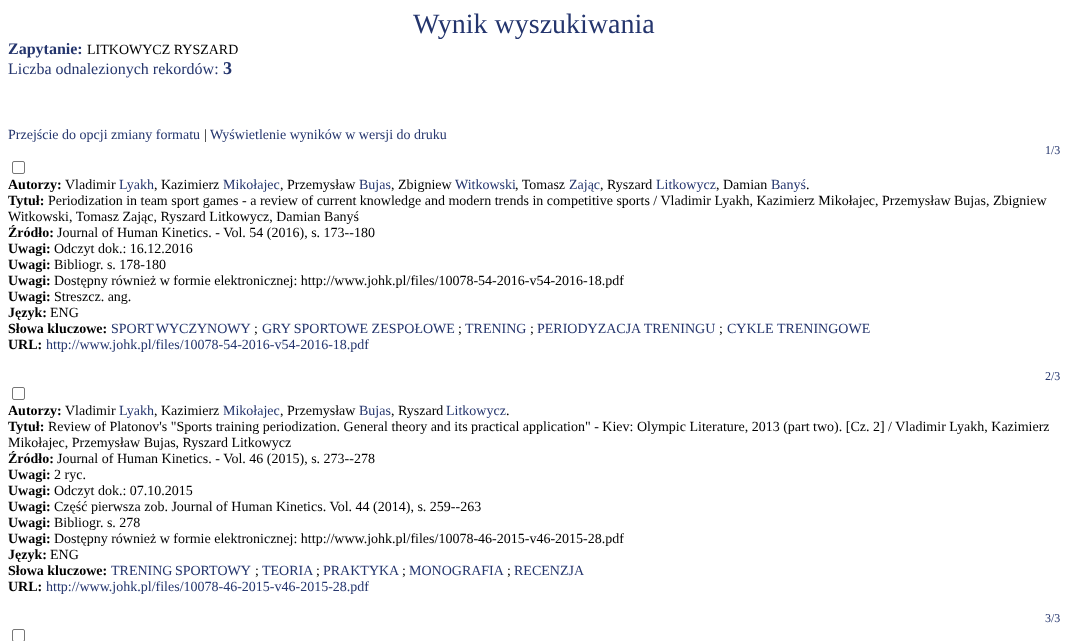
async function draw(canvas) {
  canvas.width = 1068
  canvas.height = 641
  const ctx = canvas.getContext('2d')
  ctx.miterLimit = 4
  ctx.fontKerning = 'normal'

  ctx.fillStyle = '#fff'
  ctx.fillRect(0, 0, 1068, 641)
  ctx.font = '28px Liberation Serif'
  ctx.fillStyle = '#24356d'
  ctx.fillText('Wynik wyszukiwania', 413, 33)
  ctx.font = 'bold 16px Liberation Serif'
  ctx.fillText('Zapytanie:', 8, 54)
  ctx.font = '14px Liberation Serif'
  ctx.fillStyle = '#000'
  ctx.fillText('LITKOWYCZ RYSZARD', 87, 54)
  ctx.font = '16px Liberation Serif'
  ctx.fillStyle = '#24356d'
  ctx.fillText('Liczba odnalezionych rekordów:', 8, 74)
  ctx.font = 'bold 18px Liberation Serif'
  ctx.fillText('3', 223, 74)
  ctx.font = '14px Liberation Serif'
  ctx.fillText('Przejście do opcji zmiany formatu', 8, 139)
  ctx.fillStyle = '#000'
  ctx.fillText('|', 204, 139)
  ctx.fillStyle = '#24356d'
  ctx.fillText('Wyświetlenie wyników w wersji do druku', 210, 139)
  ctx.font = '12px Liberation Serif'
  ctx.fillText('1/3', 1045, 154)
  ctx.beginPath()
  ctx.roundRect(12.5, 161.5, 12, 12, 1.5)
  ctx.strokeStyle = '#767676'
  ctx.stroke()
  ctx.font = 'bold 14px Liberation Serif'
  ctx.fillStyle = '#000'
  ctx.fillText('Autorzy:', 8, 189)
  ctx.font = '14px Liberation Serif'
  ctx.fillText('Vladimir', 65, 189)
  ctx.fillStyle = '#24356d'
  ctx.fillText('Lyakh', 119, 189)
  ctx.fillStyle = '#000'
  ctx.fillText(', Kazimierz', 154, 189)
  ctx.fillStyle = '#24356d'
  ctx.fillText('Mikołajec', 223, 189)
  ctx.fillStyle = '#000'
  ctx.fillText(', Przemysław', 280, 189)
  ctx.fillStyle = '#24356d'
  ctx.fillText('Bujas', 359, 189)
  ctx.fillStyle = '#000'
  ctx.fillText(', Zbigniew', 391, 189)
  ctx.fillStyle = '#24356d'
  ctx.fillText('Witkowski', 455, 189)
  ctx.fillStyle = '#000'
  ctx.fillText(', Tomasz', 515, 189)
  ctx.fillStyle = '#24356d'
  ctx.fillText('Zając', 569, 189)
  ctx.fillStyle = '#000'
  ctx.fillText(', Ryszard', 600, 189)
  ctx.fillStyle = '#24356d'
  ctx.fillText('Litkowycz', 656, 189)
  ctx.fillStyle = '#000'
  ctx.fillText(', Damian', 716, 189)
  ctx.fillStyle = '#24356d'
  ctx.fillText('Banyś', 771, 189)
  ctx.fillStyle = '#000'
  ctx.fillText('.', 806, 189)
  ctx.font = 'bold 14px Liberation Serif'
  ctx.fillText('Tytuł:', 8, 205)
  ctx.font = '14px Liberation Serif'
  ctx.fillText('Periodization in team sport games - a review of current knowledge and modern trends in competitive sports / Vladimir Lyakh, Kazimierz Mikołajec, Przemysław Bujas, Zbigniew', 48, 205)
  ctx.fillText('Witkowski, Tomasz Zając, Ryszard Litkowycz, Damian Banyś', 8, 221)
  ctx.font = 'bold 14px Liberation Serif'
  ctx.fillText('Źródło:', 8, 237)
  ctx.font = '14px Liberation Serif'
  ctx.fillText('Journal of Human Kinetics. - Vol. 54 (2016), s. 173--180', 57, 237)
  ctx.font = 'bold 14px Liberation Serif'
  ctx.fillText('Uwagi:', 8, 253)
  ctx.font = '14px Liberation Serif'
  ctx.fillText('Odczyt dok.: 16.12.2016', 54, 253)
  ctx.font = 'bold 14px Liberation Serif'
  ctx.fillText('Uwagi:', 8, 269)
  ctx.font = '14px Liberation Serif'
  ctx.fillText('Bibliogr. s. 178-180', 54, 269)
  ctx.font = 'bold 14px Liberation Serif'
  ctx.fillText('Uwagi:', 8, 285)
  ctx.font = '14px Liberation Serif'
  ctx.fillText('Dostępny również w formie elektronicznej: http://www.johk.pl/files/10078-54-2016-v54-2016-18.pdf', 54, 285)
  ctx.font = 'bold 14px Liberation Serif'
  ctx.fillText('Uwagi:', 8, 301)
  ctx.font = '14px Liberation Serif'
  ctx.fillText('Streszcz. ang.', 54, 301)
  ctx.font = 'bold 14px Liberation Serif'
  ctx.fillText('Język:', 8, 317)
  ctx.font = '14px Liberation Serif'
  ctx.fillText('ENG', 50, 317)
  ctx.font = 'bold 14px Liberation Serif'
  ctx.fillText('Słowa kluczowe:', 8, 333)
  ctx.wordSpacing = '-1px'
  ctx.font = '14px Liberation Serif'
  ctx.fillStyle = '#24356d'
  ctx.fillText('SPORT WYCZYNOWY', 111, 333)
  ctx.wordSpacing = '0px'
  ctx.fillStyle = '#000'
  ctx.fillText(';', 254, 333)
  ctx.fillStyle = '#24356d'
  ctx.fillText('GRY SPORTOWE ZESPOŁOWE', 262, 333)
  ctx.fillStyle = '#000'
  ctx.fillText(';', 458, 333)
  ctx.fillStyle = '#24356d'
  ctx.fillText('TRENING', 465, 333)
  ctx.fillStyle = '#000'
  ctx.fillText(';', 530, 333)
  ctx.fillStyle = '#24356d'
  ctx.fillText('PERIODYZACJA TRENINGU', 537, 333)
  ctx.fillStyle = '#000'
  ctx.fillText(';', 719, 333)
  ctx.fillStyle = '#24356d'
  ctx.fillText('CYKLE TRENINGOWE', 727, 333)
  ctx.font = 'bold 14px Liberation Serif'
  ctx.fillStyle = '#000'
  ctx.fillText('URL:', 8, 349)
  ctx.font = '14px Liberation Serif'
  ctx.fillStyle = '#24356d'
  ctx.fillText('http://www.johk.pl/files/10078-54-2016-v54-2016-18.pdf', 46, 349)
  ctx.font = '12px Liberation Serif'
  ctx.fillText('2/3', 1045, 380)
  ctx.beginPath()
  ctx.roundRect(12.5, 387.5, 12, 12, 1.5)
  ctx.stroke()
  ctx.font = 'bold 14px Liberation Serif'
  ctx.fillStyle = '#000'
  ctx.fillText('Autorzy:', 8, 415)
  ctx.font = '14px Liberation Serif'
  ctx.fillText('Vladimir', 65, 415)
  ctx.fillStyle = '#24356d'
  ctx.fillText('Lyakh', 119, 415)
  ctx.fillStyle = '#000'
  ctx.fillText(', Kazimierz', 154, 415)
  ctx.fillStyle = '#24356d'
  ctx.fillText('Mikołajec', 223, 415)
  ctx.fillStyle = '#000'
  ctx.fillText(', Przemysław', 280, 415)
  ctx.fillStyle = '#24356d'
  ctx.fillText('Bujas', 359, 415)
  ctx.fillStyle = '#000'
  ctx.fillText(', Ryszard', 391, 415)
  ctx.fillStyle = '#24356d'
  ctx.fillText('Litkowycz', 446, 415)
  ctx.fillStyle = '#000'
  ctx.fillText('.', 506, 415)
  ctx.font = 'bold 14px Liberation Serif'
  ctx.fillText('Tytuł:', 8, 431)
  ctx.font = '14px Liberation Serif'
  ctx.fillText('Review of Platonov\'s "Sports training periodization. General theory and its practical application" - Kiev: Olympic Literature, 2013 (part two). [Cz. 2] / Vladimir Lyakh, Kazimierz', 48, 431)
  ctx.fillText('Mikołajec, Przemysław Bujas, Ryszard Litkowycz', 8, 447)
  ctx.font = 'bold 14px Liberation Serif'
  ctx.fillText('Źródło:', 8, 463)
  ctx.font = '14px Liberation Serif'
  ctx.fillText('Journal of Human Kinetics. - Vol. 46 (2015), s. 273--278', 57, 463)
  ctx.font = 'bold 14px Liberation Serif'
  ctx.fillText('Uwagi:', 8, 479)
  ctx.font = '14px Liberation Serif'
  ctx.fillText('2 ryc.', 54, 479)
  ctx.font = 'bold 14px Liberation Serif'
  ctx.fillText('Uwagi:', 8, 495)
  ctx.font = '14px Liberation Serif'
  ctx.fillText('Odczyt dok.: 07.10.2015', 54, 495)
  ctx.font = 'bold 14px Liberation Serif'
  ctx.fillText('Uwagi:', 8, 511)
  ctx.font = '14px Liberation Serif'
  ctx.fillText('Część pierwsza zob. Journal of Human Kinetics. Vol. 44 (2014), s. 259--263', 54, 511)
  ctx.font = 'bold 14px Liberation Serif'
  ctx.fillText('Uwagi:', 8, 527)
  ctx.font = '14px Liberation Serif'
  ctx.fillText('Bibliogr. s. 278', 54, 527)
  ctx.font = 'bold 14px Liberation Serif'
  ctx.fillText('Uwagi:', 8, 543)
  ctx.font = '14px Liberation Serif'
  ctx.fillText('Dostępny również w formie elektronicznej: http://www.johk.pl/files/10078-46-2015-v46-2015-28.pdf', 54, 543)
  ctx.font = 'bold 14px Liberation Serif'
  ctx.fillText('Język:', 8, 559)
  ctx.font = '14px Liberation Serif'
  ctx.fillText('ENG', 50, 559)
  ctx.font = 'bold 14px Liberation Serif'
  ctx.fillText('Słowa kluczowe:', 8, 575)
  ctx.wordSpacing = '-1px'
  ctx.font = '14px Liberation Serif'
  ctx.fillStyle = '#24356d'
  ctx.fillText('TRENING SPORTOWY', 111, 575)
  ctx.wordSpacing = '0px'
  ctx.fillStyle = '#000'
  ctx.fillText(';', 255, 575)
  ctx.fillStyle = '#24356d'
  ctx.fillText('TEORIA', 262, 575)
  ctx.fillStyle = '#000'
  ctx.fillText(';', 316, 575)
  ctx.fillStyle = '#24356d'
  ctx.fillText('PRAKTYKA', 323, 575)
  ctx.fillStyle = '#000'
  ctx.fillText(';', 402, 575)
  ctx.fillStyle = '#24356d'
  ctx.fillText('MONOGRAFIA', 409, 575)
  ctx.fillStyle = '#000'
  ctx.fillText(';', 507, 575)
  ctx.fillStyle = '#24356d'
  ctx.fillText('RECENZJA', 514, 575)
  ctx.font = 'bold 14px Liberation Serif'
  ctx.fillStyle = '#000'
  ctx.fillText('URL:', 8, 591)
  ctx.font = '14px Liberation Serif'
  ctx.fillStyle = '#24356d'
  ctx.fillText('http://www.johk.pl/files/10078-46-2015-v46-2015-28.pdf', 46, 591)
  ctx.font = '12px Liberation Serif'
  ctx.fillText('3/3', 1045, 622)
  ctx.beginPath()
  ctx.roundRect(12.5, 629.5, 12, 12, 1.5)
  ctx.stroke()
}

draw(document.querySelector('canvas'))
